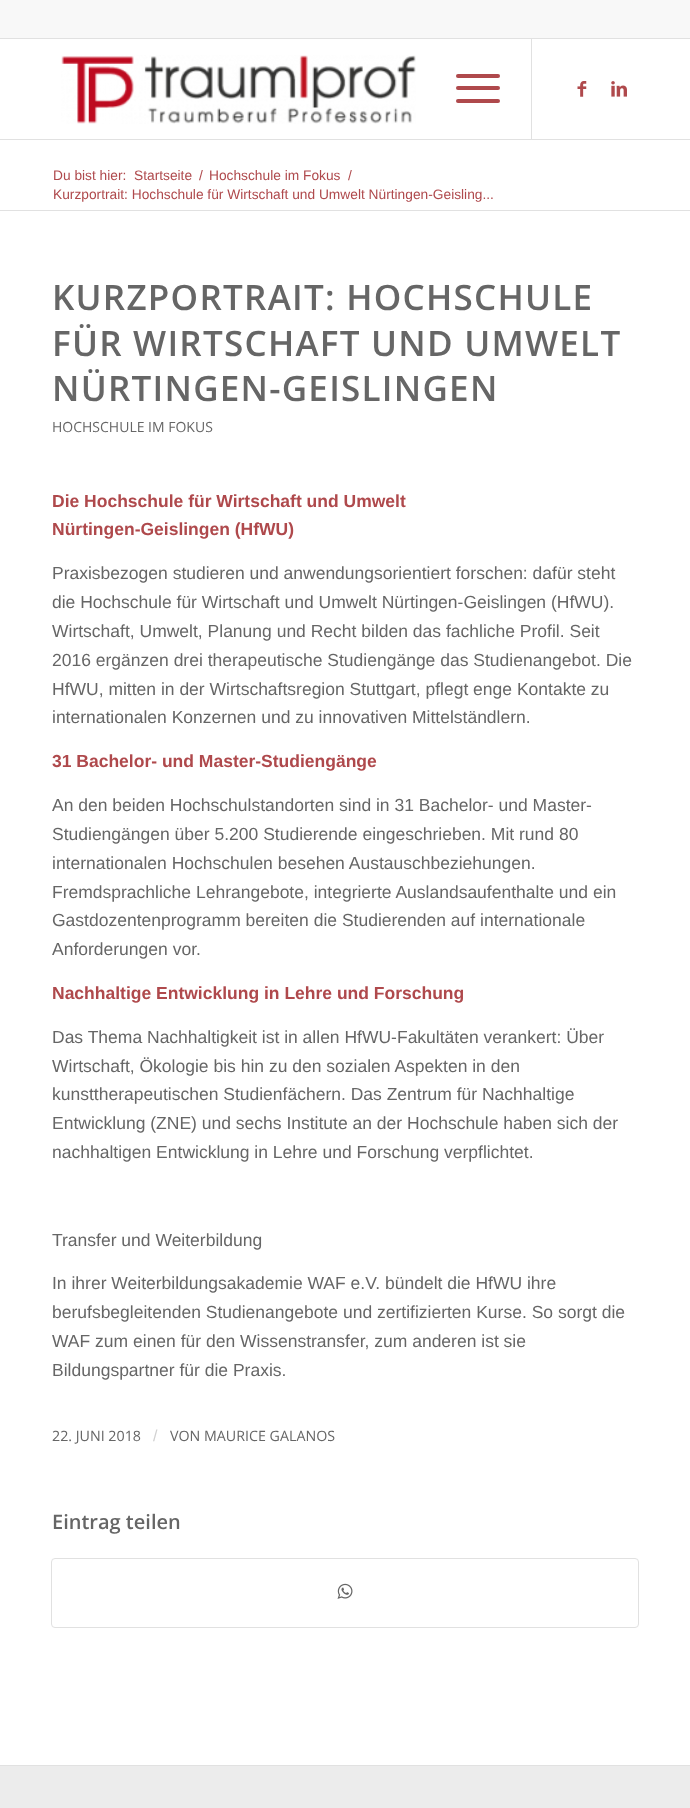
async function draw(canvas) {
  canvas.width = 690
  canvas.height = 1808
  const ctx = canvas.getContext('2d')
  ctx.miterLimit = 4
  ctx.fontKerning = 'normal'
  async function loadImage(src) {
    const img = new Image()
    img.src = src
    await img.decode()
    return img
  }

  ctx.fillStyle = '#fff'
  ctx.fillRect(0, 0, 690, 1808)
  ctx.fillStyle = '#f8f8f8'
  ctx.fillRect(0, 0, 690, 38)
  ctx.fillStyle = '#e1e1e1'
  ctx.fillRect(0, 38, 690, 1)
  ctx.fillRect(0, 139, 690, 1)
  ctx.drawImage(await loadImage('image0.png'), 61, 55, 355, 69)
  ctx.fillRect(531, 39, 1, 100)
  ctx.fillStyle = '#af494c'
  ctx.beginPath()
  ctx.roundRect(456, 86, 44, 4, 2)
  ctx.fill()
  ctx.beginPath()
  ctx.roundRect(456, 74, 44, 4, 2)
  ctx.fill()
  ctx.beginPath()
  ctx.roundRect(456, 99, 44, 4, 2)
  ctx.fill()
  ctx.drawImage(await loadImage('image1.png'), 577, 81, 10, 16)
  ctx.drawImage(await loadImage('image2.png'), 611, 81, 16, 16)
  ctx.font = '13.75px Liberation Sans'
  ctx.fillText('Du bist hier:', 53, 180)
  ctx.fillText('Startseite', 134, 180)
  ctx.fillText('/', 199, 180)
  ctx.fillText('Hochschule im Fokus', 209, 180)
  ctx.fillText('/', 348, 180)
  ctx.fillText('Kurzportrait: Hochschule für Wirtschaft und Umwelt Nürtingen-Geisling...', 53, 199)
  ctx.fillStyle = '#e1e1e1'
  ctx.fillRect(0, 210, 690, 1)
  ctx.letterSpacing = '1.25px'
  ctx.font = '600 35px Open Sans'
  ctx.fillStyle = '#666'
  ctx.fillText('KURZPORTRAIT: HOCHSCHULE', 52, 310)
  ctx.fillText('FÜR WIRTSCHAFT UND UMWELT', 52, 356)
  ctx.fillText('NÜRTINGEN-GEISLINGEN', 52, 401)
  ctx.letterSpacing = '0px'
  ctx.font = '14px Open Sans'
  ctx.fillText('HOCHSCHULE IM FOKUS', 52, 432)
  ctx.font = 'bold 17.5px Liberation Sans'
  ctx.fillStyle = '#af494c'
  ctx.fillText('Die Hochschule für Wirtschaft und Umwelt', 52, 507)
  ctx.fillText('Nürtingen-Geislingen (HfWU)', 52, 535)
  ctx.font = '17.5px Liberation Sans'
  ctx.fillStyle = '#666'
  ctx.fillText('Praxisbezogen studieren und anwendungsorientiert forschen: dafür steht', 52, 579)
  ctx.fillText('die Hochschule für Wirtschaft und Umwelt Nürtingen-Geislingen (HfWU).', 52, 608)
  ctx.fillText('Wirtschaft, Umwelt, Planung und Recht bilden das fachliche Profil. Seit', 52, 637)
  ctx.fillText('2016 ergänzen drei therapeutische Studiengänge das Studienangebot. Die', 52, 666)
  ctx.fillText('HfWU, mitten in der Wirtschaftsregion Stuttgart, pflegt enge Kontakte zu', 52, 695)
  ctx.fillText('internationalen Konzernen und zu innovativen Mittelständlern.', 52, 723)
  ctx.font = 'bold 17.5px Liberation Sans'
  ctx.fillStyle = '#af494c'
  ctx.fillText('31 Bachelor- und Master-Studiengänge', 52, 767)
  ctx.font = '17.5px Liberation Sans'
  ctx.fillStyle = '#666'
  ctx.fillText('An den beiden Hochschulstandorten sind in 31 Bachelor- und Master-', 52, 811)
  ctx.fillText('Studiengängen über 5.200 Studierende eingeschrieben. Mit rund 80', 52, 840)
  ctx.fillText('internationalen Hochschulen besehen Austauschbeziehungen.', 52, 869)
  ctx.fillText('Fremdsprachliche Lehrangebote, integrierte Auslandsaufenthalte und ein', 52, 898)
  ctx.fillText('Gastdozentenprogramm bereiten die Studierenden auf internationale', 52, 926)
  ctx.fillText('Anforderungen vor.', 52, 955)
  ctx.font = 'bold 17.5px Liberation Sans'
  ctx.fillStyle = '#af494c'
  ctx.fillText('Nachhaltige Entwicklung in Lehre und Forschung', 52, 999)
  ctx.font = '17.5px Liberation Sans'
  ctx.fillStyle = '#666'
  ctx.fillText('Das Thema Nachhaltigkeit ist in allen HfWU-Fakultäten verankert: Über', 52, 1043)
  ctx.fillText('Wirtschaft, Ökologie bis hin zu den sozialen Aspekten in den', 52, 1072)
  ctx.fillText('kunsttherapeutischen Studienfächern. Das Zentrum für Nachhaltige', 52, 1100)
  ctx.fillText('Entwicklung (ZNE) und sechs Institute an der Hochschule haben sich der', 52, 1129)
  ctx.fillText('nachhaltigen Entwicklung in Lehre und Forschung verpflichtet.', 52, 1158)
  ctx.fillText('Transfer und Weiterbildung', 52, 1246)
  ctx.fillText('In ihrer Weiterbildungsakademie WAF e.V. bündelt die HfWU ihre', 52, 1289)
  ctx.fillText('berufsbegleitenden Studienangebote und zertifizierten Kurse. So sorgt die', 52, 1318)
  ctx.fillText('WAF zum einen für den Wissenstransfer, zum anderen ist sie', 52, 1347)
  ctx.fillText('Bildungspartner für die Praxis.', 52, 1376)
  ctx.font = '14.25px Open Sans'
  ctx.fillText('22. JUNI 2018', 52, 1441)
  ctx.font = '16px Liberation Sans'
  ctx.fillStyle = '#d1d1d1'
  ctx.fillText('/', 153, 1441)
  ctx.font = '14.25px Open Sans'
  ctx.fillStyle = '#666'
  ctx.fillText('VON MAURICE GALANOS', 170, 1441)
  ctx.font = '600 20px Open Sans'
  ctx.fillText('Eintrag teilen', 52, 1529)
  ctx.beginPath()
  ctx.roundRect(51.5, 1558.5, 587, 69, 3.5)
  ctx.strokeStyle = '#e1e1e1'
  ctx.stroke()
  ctx.drawImage(await loadImage('image3.png'), 337, 1583, 16, 16)
  ctx.fillStyle = '#ececec'
  ctx.fillRect(0, 1766, 690, 42)
  ctx.fillStyle = '#e1e1e1'
  ctx.fillRect(0, 1765, 690, 1)
}

draw(document.querySelector('canvas'))
